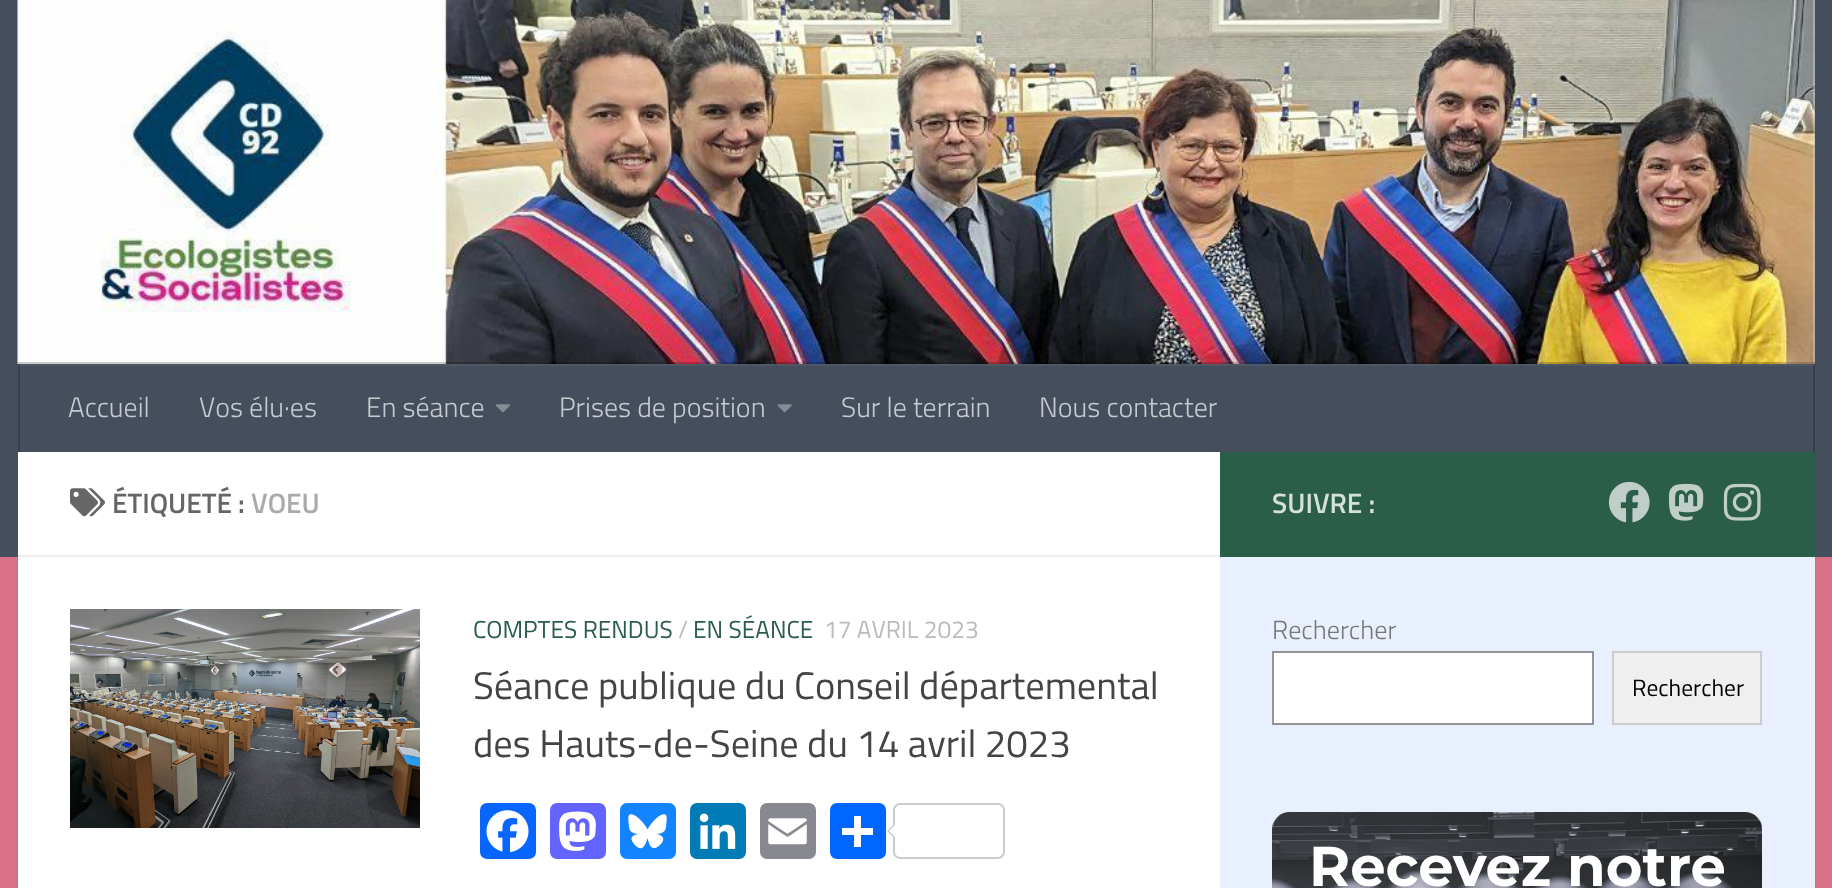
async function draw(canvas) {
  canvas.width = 1832
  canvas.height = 888
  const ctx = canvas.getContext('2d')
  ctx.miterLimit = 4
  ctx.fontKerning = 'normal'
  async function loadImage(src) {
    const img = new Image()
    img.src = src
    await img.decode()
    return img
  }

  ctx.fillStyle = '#d97288'
  ctx.fillRect(0, 0, 1832, 888)
  ctx.fillStyle = '#0000001a'
  ctx.filter = 'blur(1px)'
  ctx.beginPath()
  ctx.rect(18, 453, 1797, 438)
  ctx.fill()
  ctx.filter = 'none'
  ctx.fillStyle = '#454e5c'
  ctx.fillRect(0, 0, 1832, 557)
  ctx.fillStyle = '#4e5764'
  ctx.fillRect(18, 364, 1797, 2)
  ctx.drawImage(await loadImage('image0.png'), 17, 0, 1798, 364)
  ctx.fillStyle = '#00000033'
  ctx.beginPath()
  ctx.moveTo(18, 362)
  ctx.lineTo(18, 364)
  ctx.lineTo(1815, 364)
  ctx.lineTo(1815, 450)
  ctx.lineTo(1815, 362)
  ctx.closePath()
  ctx.fill()
  ctx.fillStyle = '#373e4a'
  ctx.fillRect(1813, 364, 2, 88)
  ctx.fillStyle = '#414853'
  ctx.fillRect(1813, 364, 2, 2)
  ctx.fillStyle = '#373e4a'
  ctx.fillRect(18, 364, 2, 88)
  ctx.fillStyle = '#414853'
  ctx.fillRect(18, 364, 2, 2)
  ctx.font = '300 28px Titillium'
  ctx.fillStyle = '#c7cace'
  ctx.fillText('Accueil', 68, 417)
  ctx.fillText('Vos élu·es', 199, 417)
  ctx.fillText('En séance', 366, 417)
  ctx.drawImage(await loadImage('image1.png'), 495, 404, 15, 9)
  ctx.fillText('Prises de position', 559, 417)
  ctx.drawImage(await loadImage('image2.png'), 777, 404, 15, 9)
  ctx.fillText('Sur le terrain', 841, 417)
  ctx.fillText('Nous contacter', 1039, 417)
  ctx.fillStyle = '#fff'
  ctx.fillRect(18, 452, 1202, 436)
  ctx.fillStyle = '#eee'
  ctx.fillRect(18, 555, 1202, 2)
  ctx.drawImage(await loadImage('image3.png'), 70, 488, 35, 29)
  ctx.font = '600 28px Titillium'
  ctx.fillStyle = '#666'
  ctx.fillText('ÉTIQUETÉ :', 112, 513)
  ctx.fillStyle = '#aaa'
  ctx.fillText('VOEU', 251, 513)
  ctx.drawImage(await loadImage('image4.png'), 70, 609, 350, 219)
  ctx.font = '24.5px Titillium'
  ctx.fillStyle = '#2b5e49'
  ctx.fillText('COMPTES RENDUS', 473, 638)
  ctx.fillStyle = '#bbb'
  ctx.fillText('/', 678, 638)
  ctx.fillStyle = '#2b5e49'
  ctx.fillText('EN SÉANCE', 693, 638)
  ctx.fillStyle = '#bbb'
  ctx.fillText('17 AVRIL 2023', 824, 638)
  ctx.font = '38.5px Titillium'
  ctx.fillStyle = '#444'
  ctx.fillText('Séance publique du Conseil départemental', 473, 699)
  ctx.fillText('des Hauts-de-Seine du 14 avril 2023', 473, 757)
  ctx.fillStyle = '#0866ff'
  ctx.beginPath()
  ctx.roundRect(480, 803, 56, 56, 7)
  ctx.fill()
  ctx.drawImage(await loadImage('image5.png'), 486, 810, 43, 43)
  ctx.fillStyle = '#6364ff'
  ctx.beginPath()
  ctx.roundRect(550, 803, 56, 56, 7)
  ctx.fill()
  ctx.drawImage(await loadImage('image6.png'), 559, 811, 37, 40)
  ctx.fillStyle = '#1285fe'
  ctx.beginPath()
  ctx.roundRect(620, 803, 56, 56, 7)
  ctx.fill()
  ctx.drawImage(await loadImage('image7.png'), 628, 814, 39, 35)
  ctx.fillStyle = '#007bb5'
  ctx.beginPath()
  ctx.roundRect(690, 803, 56, 56, 7)
  ctx.fill()
  ctx.drawImage(await loadImage('image8.png'), 699, 813, 37, 36)
  ctx.fillStyle = '#888990'
  ctx.beginPath()
  ctx.roundRect(760, 803, 56, 56, 7)
  ctx.fill()
  ctx.drawImage(await loadImage('image9.png'), 768, 818, 39, 27)
  ctx.fillStyle = '#0166ff'
  ctx.beginPath()
  ctx.roundRect(830, 803, 56, 56, 7)
  ctx.fill()
  ctx.fillStyle = '#fff'
  ctx.fillRect(854, 816, 7, 31)
  ctx.fillRect(842, 828, 31, 7)
  ctx.beginPath()
  ctx.roundRect(894, 804, 110, 54, 6)
  ctx.strokeStyle = '#ccc'
  ctx.lineWidth = 2
  ctx.stroke()
  ctx.fillStyle = '#ccc'
  ctx.beginPath()
  ctx.moveTo(894, 824)
  ctx.lineTo(894, 838)
  ctx.lineTo(887, 831)
  ctx.closePath()
  ctx.fill()
  ctx.fillStyle = '#fff'
  ctx.beginPath()
  ctx.moveTo(896, 824)
  ctx.lineTo(896, 838)
  ctx.lineTo(889, 831)
  ctx.closePath()
  ctx.fill()
  ctx.fillStyle = '#e8f0fd'
  ctx.fillRect(1220, 557, 595, 331)
  ctx.fillStyle = '#2b5e49'
  ctx.fillRect(1220, 452, 595, 105)
  ctx.font = '600 28px Titillium'
  ctx.fillStyle = '#d5dfdb'
  ctx.fillText('SUIVRE :', 1272, 513)
  ctx.drawImage(await loadImage('image10.png'), 1608, 481, 42, 42)
  ctx.drawImage(await loadImage('image11.png'), 1669, 483, 35, 38)
  ctx.drawImage(await loadImage('image12.png'), 1723, 483, 38, 38)
  ctx.font = '300 26.25px Titillium'
  ctx.fillStyle = '#777'
  ctx.fillText('Rechercher', 1272, 639)
  ctx.fillStyle = '#fff'
  ctx.beginPath()
  ctx.rect(1273, 652, 320, 72)
  ctx.fill()
  ctx.strokeStyle = '#949494'
  ctx.stroke()
  ctx.fillStyle = '#efefef'
  ctx.beginPath()
  ctx.rect(1613, 652, 148, 72)
  ctx.fill()
  ctx.strokeStyle = '#ccc'
  ctx.stroke()
  ctx.font = '23.5px Titillium'
  ctx.fillStyle = '#000'
  ctx.fillText('Rechercher', 1632, 696)
  ctx.drawImage(await loadImage('image13.png'), 1272, 812, 490, 76)
  ctx.font = 'bold 56px Montserrat'
  ctx.fillStyle = '#fff'
  ctx.fillText('Recevez notre', 1309, 886)
}

draw(document.querySelector('canvas'))
